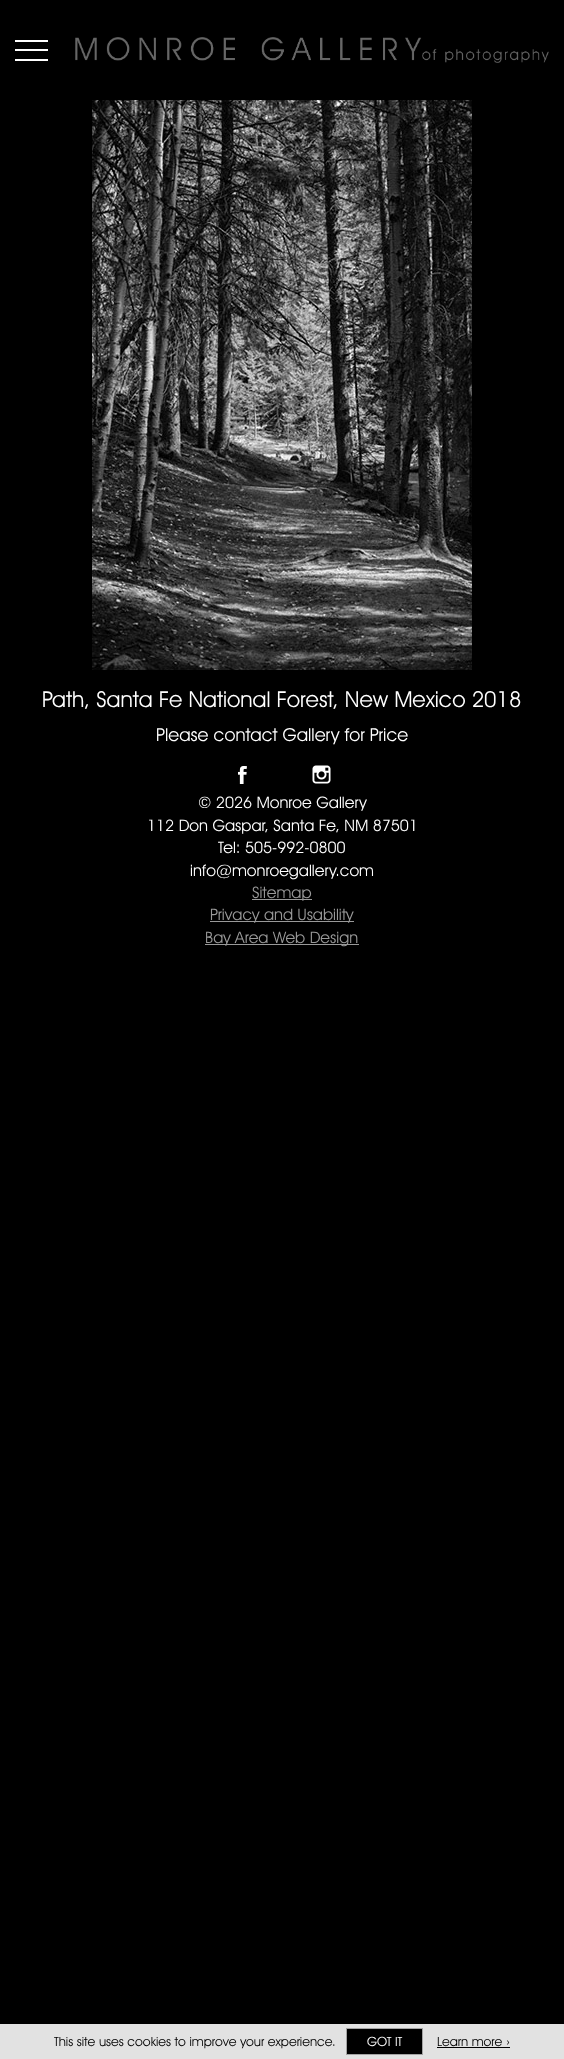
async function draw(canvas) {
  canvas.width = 564
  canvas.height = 2059
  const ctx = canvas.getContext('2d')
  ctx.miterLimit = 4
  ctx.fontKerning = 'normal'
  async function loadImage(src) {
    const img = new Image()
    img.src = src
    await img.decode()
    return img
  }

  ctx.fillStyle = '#000'
  ctx.fillRect(0, 0, 564, 2059)
  ctx.drawImage(await loadImage('image0.png'), 15, 40, 33, 21)
  ctx.drawImage(await loadImage('image1.png'), 75, 37, 474, 26)
  ctx.drawImage(await loadImage('image2.png'), 92, 100, 380, 570)
  ctx.font = '22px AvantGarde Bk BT'
  ctx.fillStyle = '#fff'
  ctx.fillText('Path, Santa Fe National Forest, New Mexico 2018', 42, 707)
  ctx.font = '18px AvantGarde Bk BT'
  ctx.fillText('Please contact Gallery for Price', 156, 741)
  ctx.drawImage(await loadImage('image3.png'), 238, 766, 9, 18)
  ctx.drawImage(await loadImage('image4.png'), 312, 765, 19, 19)
  ctx.font = '16px AvantGarde Bk BT'
  ctx.fillText('© 2026 Monroe Gallery', 198, 808)
  ctx.fillText('112 Don Gaspar, Santa Fe, NM 87501', 147, 831)
  ctx.fillText('Tel: 505-992-0800', 218, 853)
  ctx.fillText('info@monroegallery.com', 190, 876)
  ctx.fillStyle = '#999'
  ctx.fillRect(252, 899, 60, 1)
  ctx.fillText('Sitemap', 252, 898)
  ctx.fillRect(210, 921, 144, 1)
  ctx.fillText('Privacy and Usability', 210, 920)
  ctx.fillRect(205, 944, 154, 1)
  ctx.fillText('Bay Area Web Design', 205, 943)
  ctx.fillStyle = '#e2e2e2'
  ctx.fillRect(0, 2024, 564, 35)
  ctx.font = '12.8px AvantGarde Bk BT'
  ctx.fillStyle = '#000'
  ctx.fillText('This site uses cookies to improve your experience.', 54, 2046)
  ctx.beginPath()
  ctx.rect(346.5, 2028.5, 76, 26)
  ctx.fill()
  ctx.strokeStyle = '#a3a3a3'
  ctx.stroke()
  ctx.fillStyle = '#fff'
  ctx.fillText('GOT IT', 367, 2046)
  ctx.fillStyle = '#000'
  ctx.fillText('Learn more ›', 437, 2046)
  ctx.fillRect(437, 2047, 73, 1)
}

draw(document.querySelector('canvas'))
